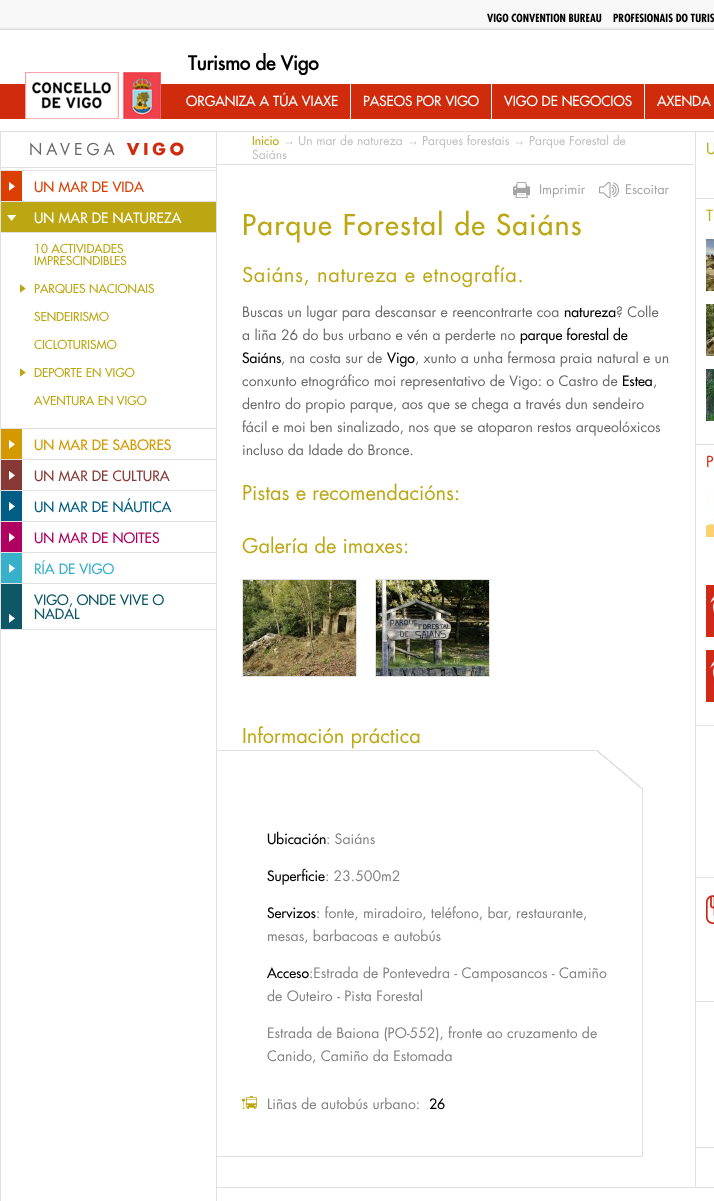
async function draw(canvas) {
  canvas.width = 714
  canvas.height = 1201
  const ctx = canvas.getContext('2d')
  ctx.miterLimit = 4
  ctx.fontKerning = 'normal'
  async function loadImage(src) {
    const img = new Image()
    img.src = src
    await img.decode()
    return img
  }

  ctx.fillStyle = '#fff'
  ctx.fillRect(0, 0, 714, 1201)
  ctx.drawImage(await loadImage('image0.png'), 0, 0, 714, 119)
  ctx.font = 'bold 11px "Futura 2"'
  ctx.fillStyle = '#000'
  ctx.fillText('VIGO CONVENTION BUREAU', 487, 22)
  ctx.fillText('PROFESIONAIS DO TURIS', 613, 22)
  ctx.font = 'bold 19px "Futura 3"'
  ctx.fillText('Turismo de Vigo', 188, 70)
  ctx.drawImage(await loadImage('image1.png'), 25, 72, 136, 47)
  ctx.fillStyle = '#fff'
  ctx.fillRect(350, 84, 1, 35)
  ctx.font = '500 13.6px Futura'
  ctx.fillText('ORGANIZA A TÚA VIAXE', 186, 106)
  ctx.fillRect(491, 84, 1, 35)
  ctx.fillText('PASEOS POR VIGO', 363, 106)
  ctx.fillRect(644, 84, 1, 35)
  ctx.fillText('VIGO DE NEGOCIOS', 504, 106)
  ctx.fillText('AXENDA', 657, 106)
  ctx.fillStyle = '#e1e1e1'
  ctx.fillRect(0, 131, 1, 1070)
  ctx.fillRect(1, 131, 215, 1)
  ctx.fillRect(1, 167, 215, 1)
  ctx.letterSpacing = '4px'
  ctx.font = '16px Futura'
  ctx.fillStyle = '#686868'
  ctx.fillText('NAVEGA', 29, 155)
  ctx.font = 'bold 16px Futura'
  ctx.fillStyle = '#d02b0c'
  ctx.fillText('VIGO', 127, 155)
  ctx.fillStyle = '#e1e1e1'
  ctx.fillRect(1, 170, 215, 1)
  ctx.fillStyle = '#db3f02'
  ctx.fillRect(1, 171, 21, 30)
  ctx.drawImage(await loadImage('image2.png'), 9, 182, 6, 9)
  ctx.letterSpacing = '0px'
  ctx.font = '500 14px Futura'
  ctx.fillText('UN MAR DE VIDA', 34, 192)
  ctx.fillStyle = '#bca713'
  ctx.fillRect(1, 202, 215, 30)
  ctx.fillStyle = '#e1e1e1'
  ctx.fillRect(1, 201, 215, 1)
  ctx.drawImage(await loadImage('image3.png'), 7, 215, 9, 6)
  ctx.fillStyle = '#fff'
  ctx.fillText('UN MAR DE NATUREZA', 34, 223)
  ctx.fillStyle = '#e1e1e1'
  ctx.fillRect(1, 232, 215, 1)
  ctx.font = '500 12px Futura'
  ctx.fillStyle = '#bca713'
  ctx.fillText('10 ACTIVIDADES', 34, 253)
  ctx.fillText('IMPRESCINDIBLES', 34, 265)
  ctx.drawImage(await loadImage('image4.png'), 20, 284, 6, 9)
  ctx.fillText('PARQUES NACIONAIS', 34, 293)
  ctx.fillText('SENDEIRISMO', 34, 321)
  ctx.fillText('CICLOTURISMO', 34, 349)
  ctx.drawImage(await loadImage('image4.png'), 20, 368, 6, 9)
  ctx.fillText('DEPORTE EN VIGO', 34, 377)
  ctx.fillText('AVENTURA EN VIGO', 34, 405)
  ctx.fillStyle = '#e1e1e1'
  ctx.fillRect(1, 428, 215, 1)
  ctx.fillStyle = '#d49800'
  ctx.fillRect(1, 429, 21, 30)
  ctx.drawImage(await loadImage('image5.png'), 9, 440, 6, 9)
  ctx.font = '500 14px Futura'
  ctx.fillText('UN MAR DE SABORES', 34, 450)
  ctx.fillStyle = '#e1e1e1'
  ctx.fillRect(1, 459, 215, 1)
  ctx.fillStyle = '#873a35'
  ctx.fillRect(1, 460, 21, 30)
  ctx.drawImage(await loadImage('image6.png'), 9, 471, 6, 9)
  ctx.fillText('UN MAR DE CULTURA', 34, 481)
  ctx.fillStyle = '#e1e1e1'
  ctx.fillRect(1, 490, 215, 1)
  ctx.fillStyle = '#005d83'
  ctx.fillRect(1, 491, 21, 30)
  ctx.drawImage(await loadImage('image7.png'), 9, 502, 6, 9)
  ctx.fillText('UN MAR DE NÁUTICA', 34, 512)
  ctx.fillStyle = '#e1e1e1'
  ctx.fillRect(1, 521, 215, 1)
  ctx.fillStyle = '#af0061'
  ctx.fillRect(1, 522, 21, 30)
  ctx.drawImage(await loadImage('image8.png'), 9, 533, 6, 9)
  ctx.fillText('UN MAR DE NOITES', 34, 543)
  ctx.fillStyle = '#e1e1e1'
  ctx.fillRect(1, 552, 215, 1)
  ctx.fillStyle = '#37b0c9'
  ctx.fillRect(1, 553, 21, 30)
  ctx.drawImage(await loadImage('image9.png'), 9, 564, 6, 9)
  ctx.fillText('RÍA DE VIGO', 34, 574)
  ctx.fillStyle = '#e1e1e1'
  ctx.fillRect(1, 583, 215, 1)
  ctx.fillRect(1, 629, 215, 1)
  ctx.fillStyle = '#0d5766'
  ctx.fillRect(1, 584, 21, 45)
  ctx.drawImage(await loadImage('image10.png'), 9, 614, 6, 9)
  ctx.fillText('VIGO, ONDE VIVE O', 34, 605)
  ctx.fillText('NADAL', 34, 619)
  ctx.strokeStyle = '#e1e1e1'
  ctx.strokeRect(216.5, 131.5, 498, 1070)
  ctx.fillStyle = '#e1e1e1'
  ctx.fillRect(217, 164, 477, 1)
  ctx.font = '500 12px Futura'
  ctx.fillStyle = '#bca713'
  ctx.fillText('Inicio', 252, 145)
  ctx.font = '12px Liberation Sans'
  ctx.fillStyle = '#bebebe'
  ctx.fillText('→', 283, 145)
  ctx.font = '12px Futura'
  ctx.fillText('Un mar de natureza', 298, 145)
  ctx.font = '12px Liberation Sans'
  ctx.fillText('→', 407, 145)
  ctx.font = '12px Futura'
  ctx.fillText('Parques forestais', 422, 145)
  ctx.font = '12px Liberation Sans'
  ctx.fillText('→', 513, 145)
  ctx.font = '12px Futura'
  ctx.fillText('Parque Forestal de', 529, 145)
  ctx.fillText('Saiáns', 252, 159)
  ctx.drawImage(await loadImage('image11.png'), 513, 182, 17, 16)
  ctx.font = '13px Futura'
  ctx.fillStyle = '#a4a4a4'
  ctx.fillText('Imprimir', 539, 194)
  ctx.drawImage(await loadImage('image12.png'), 599, 182, 20, 16)
  ctx.fillText('Escoitar', 625, 194)
  ctx.letterSpacing = '1.4px'
  ctx.font = '500 28px Futura'
  ctx.fillStyle = '#bca713'
  ctx.fillText('Parque Forestal de Saiáns', 242, 235)
  ctx.letterSpacing = '0.6px'
  ctx.font = '20px Futura'
  ctx.fillText('Saiáns, natureza e etnografía.', 242, 282)
  ctx.letterSpacing = '0px'
  ctx.font = '14px Futura'
  ctx.fillStyle = '#686868'
  ctx.fillText('Buscas un lugar para descansar e reencontrarte coa', 242, 317)
  ctx.font = '500 14px Futura'
  ctx.fillStyle = '#000'
  ctx.fillText('natureza', 564, 317)
  ctx.font = '14px Futura'
  ctx.fillStyle = '#686868'
  ctx.fillText('? Colle', 616, 317)
  ctx.fillText('a liña 26 do bus urbano e vén a perderte no', 242, 340)
  ctx.font = '500 14px Futura'
  ctx.fillStyle = '#000'
  ctx.fillText('parque forestal de', 520, 340)
  ctx.fillText('Saiáns', 242, 363)
  ctx.font = '14px Futura'
  ctx.fillStyle = '#686868'
  ctx.fillText(', na costa sur de', 281, 363)
  ctx.font = '500 14px Futura'
  ctx.fillStyle = '#000'
  ctx.fillText('Vigo', 387, 363)
  ctx.font = '14px Futura'
  ctx.fillStyle = '#686868'
  ctx.fillText(', xunto a unha fermosa praia natural e un', 415, 363)
  ctx.fillText('conxunto etnográfico moi representativo de Vigo: o Castro de', 242, 386)
  ctx.font = '500 14px Futura'
  ctx.fillStyle = '#000'
  ctx.fillText('Estea', 622, 386)
  ctx.font = '14px Futura'
  ctx.fillStyle = '#686868'
  ctx.fillText(',', 653, 386)
  ctx.fillText('dentro do propio parque, aos que se chega a través dun sendeiro', 242, 409)
  ctx.fillText('fácil e moi ben sinalizado, nos que se atoparon restos arqueolóxicos', 242, 432)
  ctx.fillText('incluso da Idade do Bronce.', 242, 455)
  ctx.font = '20px Futura'
  ctx.fillStyle = '#bca713'
  ctx.fillText('Pistas e recomendacións:', 242, 500)
  ctx.fillText('Galería de imaxes:', 242, 553)
  ctx.strokeRect(242.5, 579.5, 114, 97)
  ctx.drawImage(await loadImage('image13.png'), 243, 580, 113, 96)
  ctx.strokeRect(375.5, 579.5, 114, 97)
  ctx.drawImage(await loadImage('image14.png'), 376, 580, 113, 96)
  ctx.fillText('Información práctica', 242, 743)
  ctx.fillStyle = '#e1e1e1'
  ctx.fillRect(217, 750, 380, 1)
  ctx.fillRect(642, 789, 1, 368)
  ctx.fillRect(217, 1156, 426, 1)
  ctx.drawImage(await loadImage('image15.png'), 597, 750, 46, 39)
  ctx.font = '500 14px Futura'
  ctx.fillStyle = '#000'
  ctx.fillText('Ubicación', 267, 844)
  ctx.font = '14px Futura'
  ctx.fillStyle = '#828282'
  ctx.fillText(': Saiáns', 326, 844)
  ctx.font = '500 14px Futura'
  ctx.fillStyle = '#000'
  ctx.fillText('Superficie', 267, 881)
  ctx.font = '14px Futura'
  ctx.fillStyle = '#828282'
  ctx.fillText(': 23.500m2', 325, 881)
  ctx.font = '500 14px Futura'
  ctx.fillStyle = '#000'
  ctx.fillText('Servizos', 267, 918)
  ctx.font = '14px Futura'
  ctx.fillStyle = '#828282'
  ctx.fillText(': fonte, miradoiro, teléfono, bar, restaurante,', 316, 918)
  ctx.fillText('mesas, barbacoas e autobús', 267, 941)
  ctx.font = '500 14px Futura'
  ctx.fillStyle = '#000'
  ctx.fillText('Acceso', 267, 978)
  ctx.font = '14px Futura'
  ctx.fillStyle = '#828282'
  ctx.fillText(':Estrada de Pontevedra - Camposancos - Camiño', 309, 978)
  ctx.fillText('de Outeiro - Pista Forestal', 267, 1001)
  ctx.fillText('Estrada de Baiona (PO-552), fronte ao cruzamento de', 267, 1038)
  ctx.fillText('Canido, Camiño da Estomada', 267, 1061)
  ctx.drawImage(await loadImage('image16.png'), 242, 1096, 15, 13)
  ctx.fillText('Liñas de autobús urbano:', 267, 1109)
  ctx.font = '500 14px Futura'
  ctx.fillStyle = '#000'
  ctx.fillText('26', 429, 1109)
  ctx.fillStyle = '#e1e1e1'
  ctx.fillRect(695, 132, 1, 1055)
  ctx.fillRect(696, 198, 18, 1)
  ctx.font = '15px Futura'
  ctx.fillStyle = '#bca713'
  ctx.fillText('U', 706, 154)
  ctx.fillStyle = '#e1e1e1'
  ctx.fillRect(696, 444, 18, 1)
  ctx.fillStyle = '#bca713'
  ctx.fillText('T', 706, 221)
  ctx.drawImage(await loadImage('image17.png'), 706, 239, 8, 52)
  ctx.drawImage(await loadImage('image18.png'), 706, 304, 8, 52)
  ctx.drawImage(await loadImage('image19.png'), 706, 369, 8, 52)
  ctx.fillStyle = '#e1e1e1'
  ctx.fillRect(696, 725, 18, 1)
  ctx.fillStyle = '#d02b0c'
  ctx.fillText('P', 706, 467)
  ctx.drawImage(await loadImage('image20.png'), 706, 485, 8, 52)
  ctx.drawImage(await loadImage('image21.png'), 706, 585, 8, 52)
  ctx.drawImage(await loadImage('image21.png'), 706, 650, 8, 52)
  ctx.fillStyle = '#e1e1e1'
  ctx.fillRect(696, 877, 18, 1)
  ctx.fillRect(696, 1001, 18, 1)
  ctx.drawImage(await loadImage('image22.png'), 706, 895, 8, 29)
  ctx.fillRect(696, 1147, 18, 1)
  ctx.fillRect(217, 1187, 497, 1)
}

draw(document.querySelector('canvas'))
